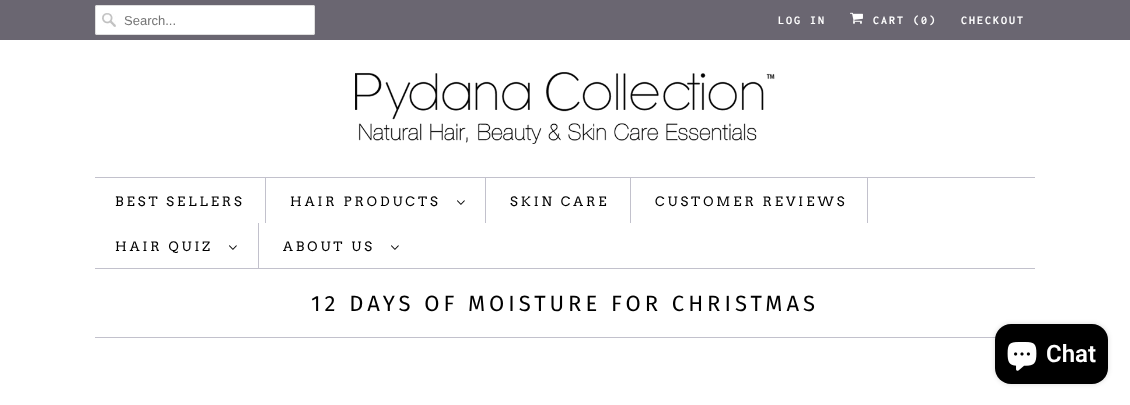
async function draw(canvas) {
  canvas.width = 1130
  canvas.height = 405
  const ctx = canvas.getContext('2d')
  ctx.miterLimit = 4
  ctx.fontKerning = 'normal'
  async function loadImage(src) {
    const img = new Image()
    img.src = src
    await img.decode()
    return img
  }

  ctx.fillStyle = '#fff'
  ctx.fillRect(0, 0, 1130, 405)
  ctx.fillStyle = '#6a6671'
  ctx.fillRect(0, 0, 1130, 40)
  ctx.fillStyle = '#fff'
  ctx.beginPath()
  ctx.roundRect(95, 5, 220, 30, 2)
  ctx.fill()
  ctx.drawImage(await loadImage('image0.png'), 102, 13, 14, 14)
  ctx.beginPath()
  ctx.roundRect(95.5, 5.5, 219, 29, 1.5)
  ctx.strokeStyle = '#dfdfdf'
  ctx.stroke()
  ctx.font = '13px Liberation Sans'
  ctx.fillStyle = '#757575'
  ctx.fillText('Search...', 124, 25)
  ctx.letterSpacing = '2px'
  ctx.font = 'bold 12px Inconsolata'
  ctx.fillStyle = '#fff'
  ctx.fillText('LOG IN', 778, 24)
  ctx.drawImage(await loadImage('image1.png'), 850, 12, 13, 12)
  ctx.fillText('CART (0)', 873, 24)
  ctx.fillText('CHECKOUT', 961, 24)
  ctx.drawImage(await loadImage('image2.png'), 355, 72, 420, 72)
  ctx.fillStyle = '#c2c1cc'
  ctx.fillRect(95, 177, 940, 1)
  ctx.fillRect(95, 268, 940, 1)
  ctx.fillRect(265, 178, 1, 45)
  ctx.letterSpacing = '3px'
  ctx.font = '13px Arvo'
  ctx.fillStyle = '#000'
  ctx.fillText('BEST SELLERS', 115, 206)
  ctx.fillStyle = '#c2c1cc'
  ctx.fillRect(485, 178, 1, 45)
  ctx.fillStyle = '#000'
  ctx.fillText('HAIR PRODUCTS', 290, 206)
  ctx.drawImage(await loadImage('image3.png'), 457, 200, 8, 5)
  ctx.fillStyle = '#c2c1cc'
  ctx.fillRect(630, 178, 1, 45)
  ctx.fillStyle = '#000'
  ctx.fillText('SKIN CARE', 510, 206)
  ctx.fillStyle = '#c2c1cc'
  ctx.fillRect(867, 178, 1, 45)
  ctx.fillStyle = '#000'
  ctx.fillText('CUSTOMER REVIEWS', 655, 206)
  ctx.fillStyle = '#c2c1cc'
  ctx.fillRect(258, 223, 1, 45)
  ctx.fillStyle = '#000'
  ctx.fillText('HAIR QUIZ', 115, 251)
  ctx.drawImage(await loadImage('image3.png'), 229, 245, 8, 5)
  ctx.fillText('ABOUT US', 283, 251)
  ctx.drawImage(await loadImage('image3.png'), 391, 245, 8, 5)
  ctx.fillStyle = '#c2c1cc'
  ctx.fillRect(95, 337, 901, 1)
  ctx.letterSpacing = '4px'
  ctx.font = '22px Fira Sans'
  ctx.fillStyle = '#000'
  ctx.fillText('12 DAYS OF MOISTURE FOR CHRISTMAS', 311, 311)
  ctx.fillStyle = '#00000026'
  ctx.filter = 'blur(2.5px)'
  ctx.beginPath()
  ctx.roundRect(995, 324, 113, 60, 16)
  ctx.fill()
  ctx.filter = 'none'
  ctx.fillStyle = '#000'
  ctx.beginPath()
  ctx.roundRect(995, 324, 113, 60, 16)
  ctx.fill()
  ctx.drawImage(await loadImage('image4.png'), 1007, 342, 30, 29)
  ctx.letterSpacing = '0px'
  ctx.font = '600 24px Roboto'
  ctx.fillStyle = '#fff'
  ctx.fillText('Chat', 1046, 362)
}

draw(document.querySelector('canvas'))
